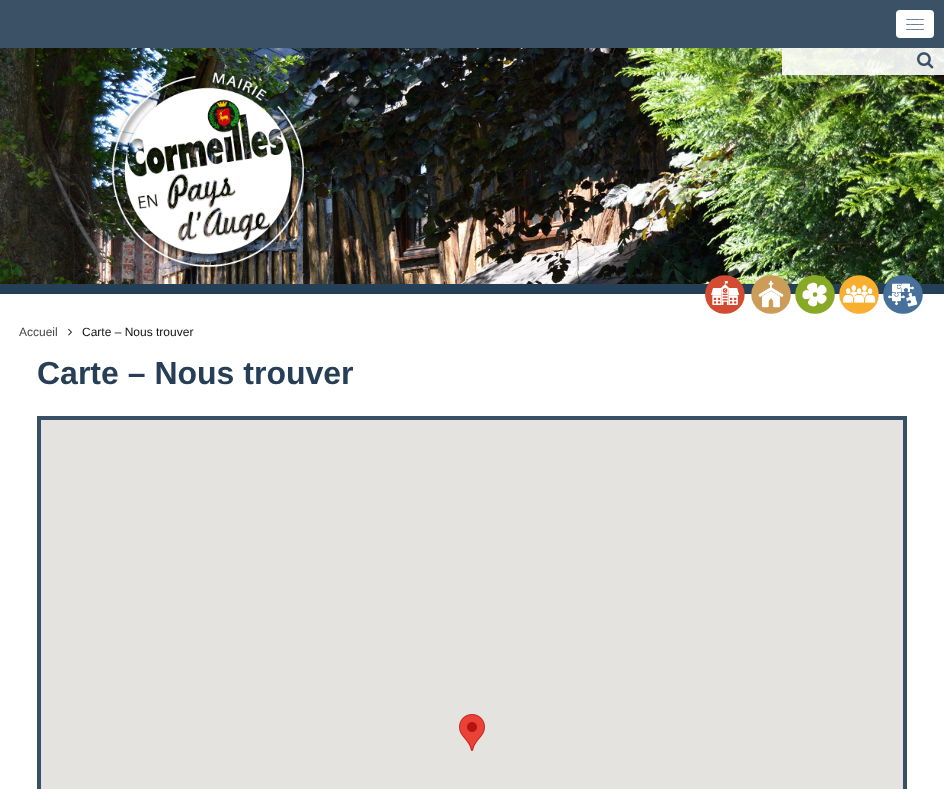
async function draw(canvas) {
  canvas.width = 944
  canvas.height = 789
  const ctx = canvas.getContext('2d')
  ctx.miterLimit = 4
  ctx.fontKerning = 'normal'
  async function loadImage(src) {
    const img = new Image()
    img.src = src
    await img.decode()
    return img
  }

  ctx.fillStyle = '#fff'
  ctx.fillRect(0, 0, 944, 789)
  ctx.fillStyle = '#3b5166'
  ctx.fillRect(0, 0, 944, 48)
  ctx.fillStyle = '#fff'
  ctx.beginPath()
  ctx.roundRect(896, 10, 38, 28, 4)
  ctx.fill()
  ctx.fillStyle = '#6c7d8c'
  ctx.beginPath()
  ctx.moveTo(906, 18.5)
  ctx.bezierCurveTo(905, 20.5, 909.5, 20, 909.5, 20)
  ctx.lineTo(920.5, 20)
  ctx.bezierCurveTo(920.5, 20, 925, 20.5, 924, 18.5)
  ctx.bezierCurveTo(923, 19.5, 916.5, 19, 915, 19)
  ctx.bezierCurveTo(913.5, 19, 907, 19.5, 906, 18.5)
  ctx.closePath()
  ctx.fill()
  ctx.fillStyle = '#fff'
  ctx.beginPath()
  ctx.roundRect(906, 17, 18, 2, 1)
  ctx.fill()
  ctx.fillStyle = '#6c7d8c'
  ctx.beginPath()
  ctx.moveTo(906, 23.5)
  ctx.bezierCurveTo(905, 25.5, 909.5, 25, 909.5, 25)
  ctx.lineTo(920.5, 25)
  ctx.bezierCurveTo(920.5, 25, 925, 25.5, 924, 23.5)
  ctx.bezierCurveTo(923, 24.5, 916.5, 24, 915, 24)
  ctx.bezierCurveTo(913.5, 24, 907, 24.5, 906, 23.5)
  ctx.closePath()
  ctx.fill()
  ctx.fillStyle = '#fff'
  ctx.beginPath()
  ctx.roundRect(906, 22, 18, 2, 1)
  ctx.fill()
  ctx.fillStyle = '#6c7d8c'
  ctx.beginPath()
  ctx.moveTo(906, 28.5)
  ctx.bezierCurveTo(905, 30.5, 909.5, 30, 909.5, 30)
  ctx.lineTo(920.5, 30)
  ctx.bezierCurveTo(920.5, 30, 925, 30.5, 924, 28.5)
  ctx.bezierCurveTo(923, 29.5, 916.5, 29, 915, 29)
  ctx.bezierCurveTo(913.5, 29, 907, 29.5, 906, 28.5)
  ctx.closePath()
  ctx.fill()
  ctx.fillStyle = '#fff'
  ctx.beginPath()
  ctx.roundRect(906, 27, 18, 2, 1)
  ctx.fill()
  ctx.drawImage(await loadImage('image0.png'), 0, 48, 944, 236)
  ctx.fillStyle = '#ffffffe6'
  ctx.fillRect(782, 48, 162, 27)
  ctx.drawImage(await loadImage('image1.png'), 917, 52, 17, 17)
  ctx.drawImage(await loadImage('image2.png'), 109, 72, 201, 202)
  ctx.fillStyle = '#253f56'
  ctx.fillRect(0, 284, 944, 10)
  ctx.drawImage(await loadImage('image3.png'), 705, 275, 40, 39)
  ctx.drawImage(await loadImage('image4.png'), 751, 275, 40, 39)
  ctx.drawImage(await loadImage('image5.png'), 795, 275, 40, 39)
  ctx.drawImage(await loadImage('image6.png'), 839, 275, 40, 39)
  ctx.drawImage(await loadImage('image7.png'), 883, 275, 40, 39)
  ctx.font = '12px Liberation Sans'
  ctx.fillStyle = '#444'
  ctx.fillText('Accueil', 19, 336)
  ctx.drawImage(await loadImage('image8.png'), 68, 328, 4, 8)
  ctx.fillStyle = '#131211'
  ctx.fillText('Carte – Nous trouver', 82, 336)
  ctx.font = 'bold 32px Liberation Sans'
  ctx.fillStyle = '#263f56'
  ctx.fillText('Carte – Nous trouver', 37, 384)
  ctx.strokeStyle = '#375067'
  ctx.lineWidth = 4
  ctx.strokeRect(39, 418, 866, 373)
  ctx.fillStyle = '#e5e3df'
  ctx.fillRect(41, 420, 862, 369)
  ctx.drawImage(await loadImage('image9.png'), 459, 714, 26, 37)
}

draw(document.querySelector('canvas'))
